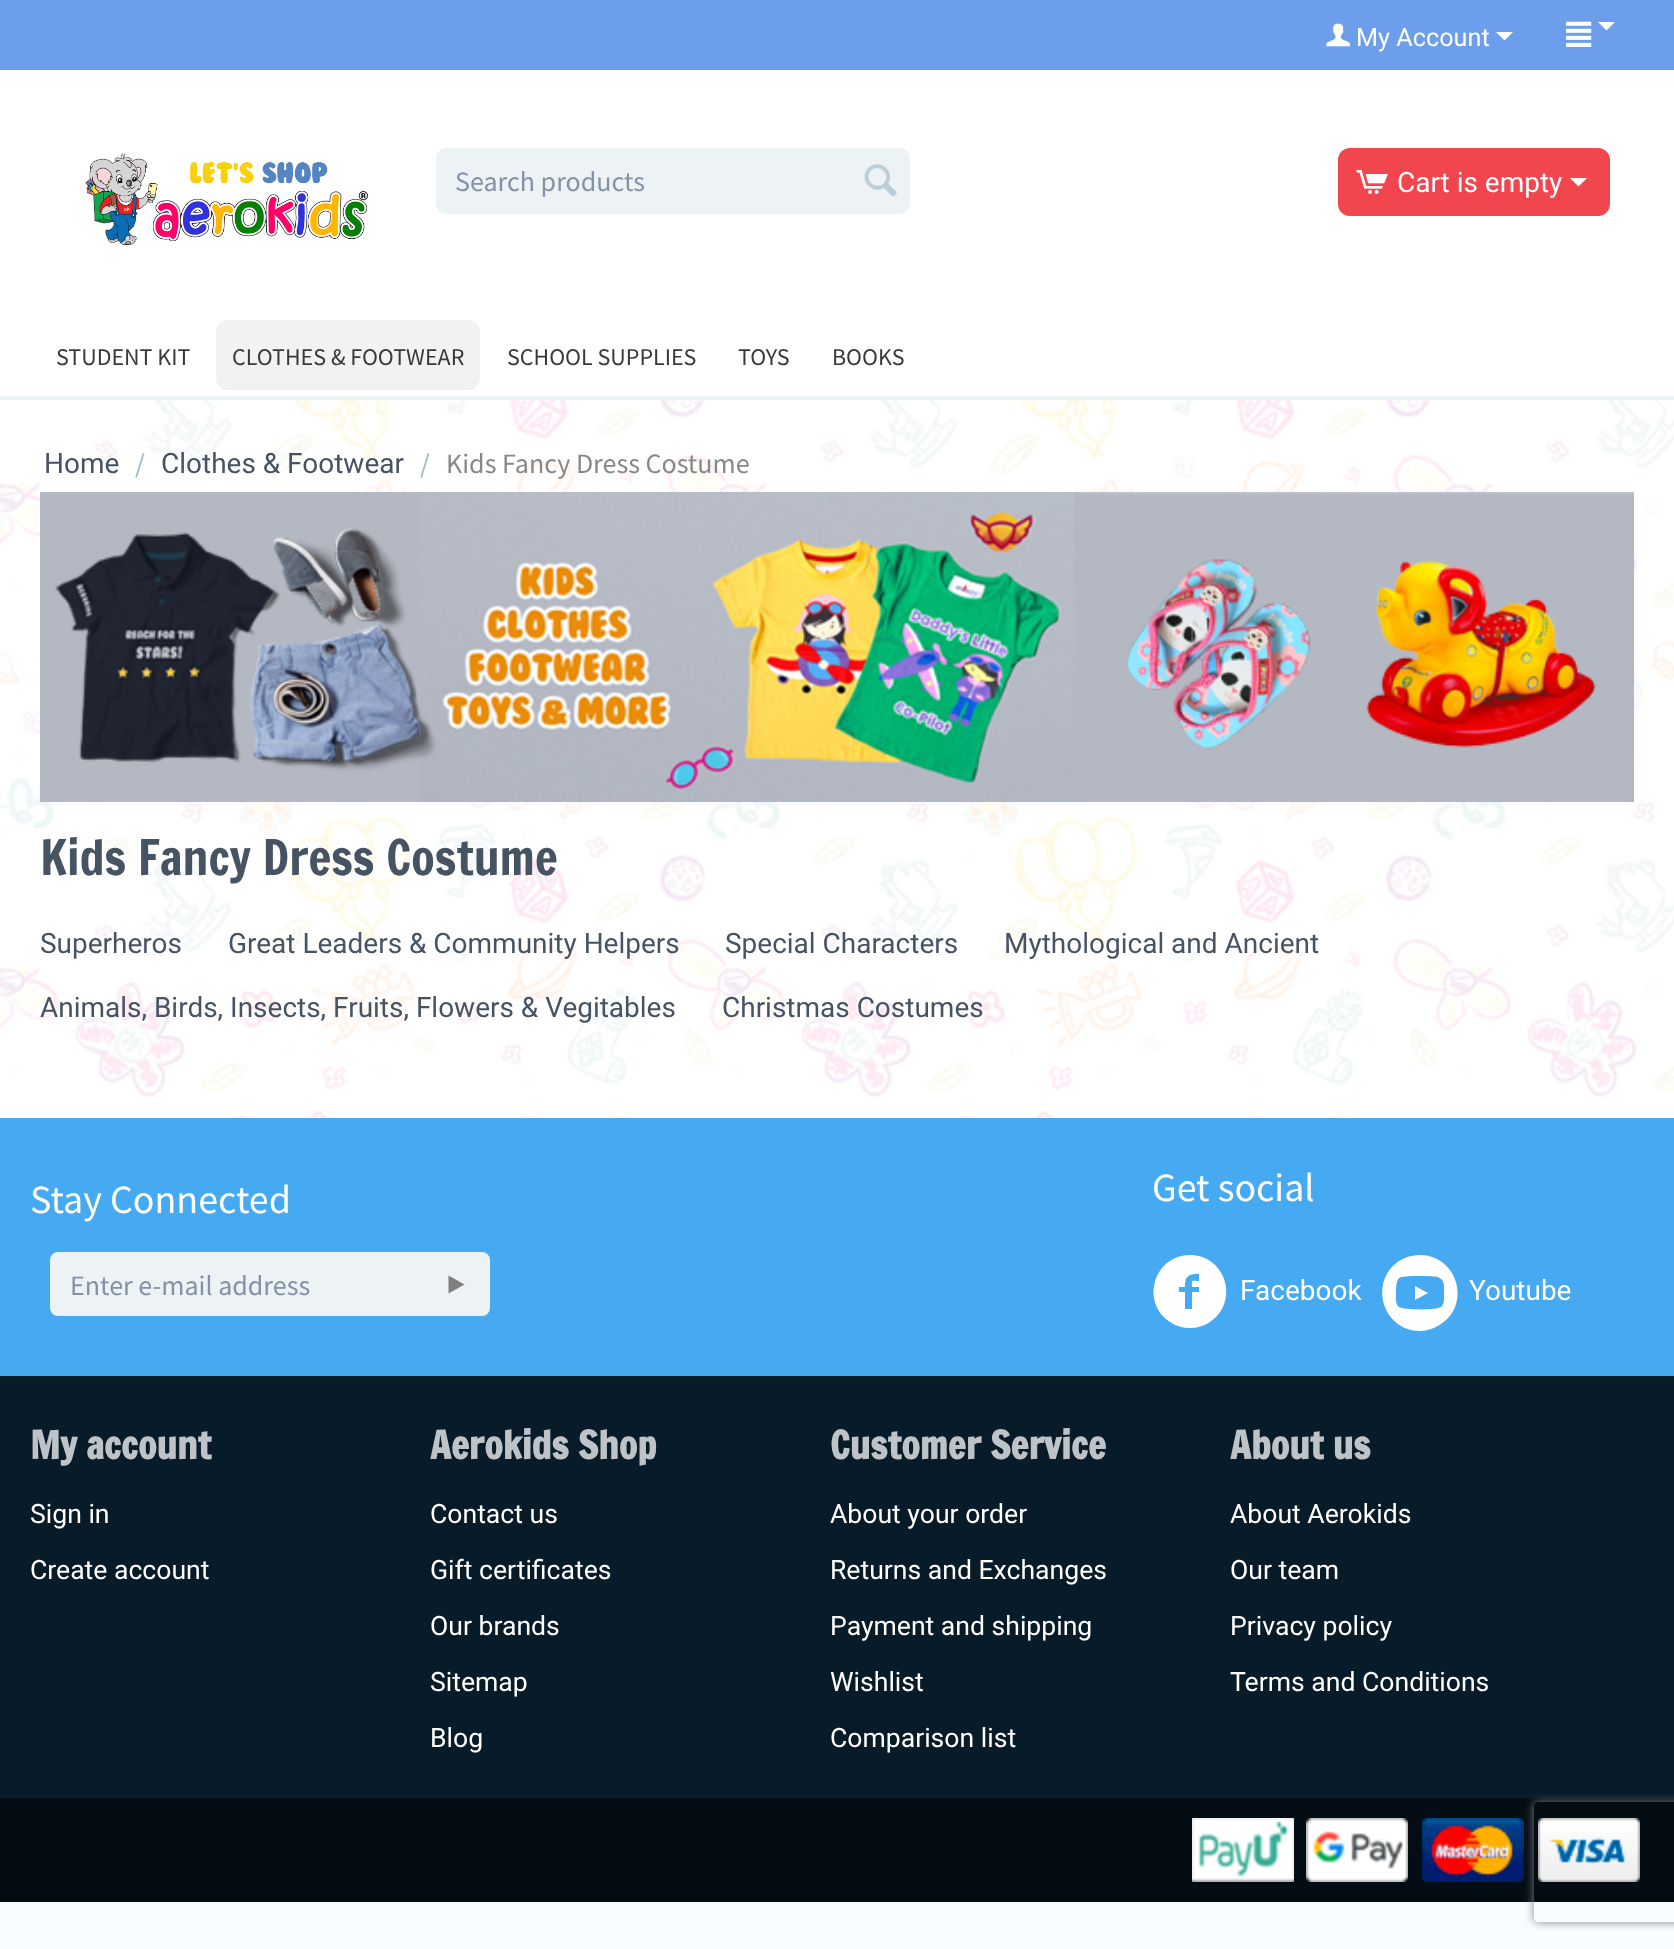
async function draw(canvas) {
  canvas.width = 1674
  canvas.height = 1949
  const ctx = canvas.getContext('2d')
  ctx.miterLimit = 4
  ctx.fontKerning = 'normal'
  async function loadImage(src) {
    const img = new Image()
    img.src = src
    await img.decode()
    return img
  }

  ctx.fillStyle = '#fafdff'
  ctx.fillRect(0, 0, 1674, 1949)
  ctx.drawImage(await loadImage('image0.png'), 0, 400, 1674, 718)
  ctx.fillStyle = '#6d9eeb'
  ctx.fillRect(0, 0, 1674, 70)
  ctx.drawImage(await loadImage('image1.png'), 1326, 23, 25, 24)
  ctx.font = '25.25px Roboto'
  ctx.fillStyle = '#fff'
  ctx.fillText('My Account', 1356, 46)
  ctx.beginPath()
  ctx.moveTo(1504.5, 40.5)
  ctx.lineTo(1496, 32)
  ctx.lineTo(1513, 32)
  ctx.closePath()
  ctx.fill()
  ctx.drawImage(await loadImage('image2.png'), 1566, 21, 26, 26)
  ctx.beginPath()
  ctx.moveTo(1606.5, 30.5)
  ctx.lineTo(1598, 22)
  ctx.lineTo(1615, 22)
  ctx.closePath()
  ctx.fill()
  ctx.fillRect(0, 70, 1674, 326)
  ctx.drawImage(await loadImage('image3.png'), 85, 153, 283, 92)
  ctx.fillStyle = '#edf2f5'
  ctx.beginPath()
  ctx.roundRect(438, 150, 470, 62, 8)
  ctx.fill()
  ctx.strokeStyle = '#edf2f5'
  ctx.lineWidth = 4
  ctx.stroke()
  ctx.font = '28px Source Sans Pro'
  ctx.fillStyle = '#8292a7'
  ctx.fillText('Search products', 455, 191)
  ctx.drawImage(await loadImage('image4.png'), 864, 164, 33, 33)
  ctx.fillStyle = '#f2464e'
  ctx.beginPath()
  ctx.roundRect(1338, 148, 272, 68, 12)
  ctx.fill()
  ctx.drawImage(await loadImage('image5.png'), 1356, 170, 32, 24)
  ctx.font = '28px Roboto'
  ctx.fillStyle = '#fff'
  ctx.fillText('Cart is empty', 1397, 192)
  ctx.beginPath()
  ctx.moveTo(1578.5, 186.5)
  ctx.lineTo(1570, 178)
  ctx.lineTo(1587, 178)
  ctx.closePath()
  ctx.fill()
  ctx.font = '24px Source Sans Pro'
  ctx.fillStyle = '#393939'
  ctx.fillText('STUDENT KIT', 56, 365)
  ctx.fillStyle = '#f2f2f2'
  ctx.beginPath()
  ctx.roundRect(216, 320, 264, 70, 12)
  ctx.fill()
  ctx.fillStyle = '#393939'
  ctx.fillText('CLOTHES & FOOTWEAR', 232, 365)
  ctx.fillText('SCHOOL SUPPLIES', 507, 365)
  ctx.fillText('TOYS', 738, 365)
  ctx.fillText('BOOKS', 832, 365)
  ctx.fillStyle = '#edf2f5'
  ctx.fillRect(0, 396, 1674, 4)
  ctx.font = '28px Roboto'
  ctx.fillStyle = '#465363'
  ctx.fillText('Home', 44, 473)
  ctx.font = '28px Source Sans Pro'
  ctx.fillStyle = '#9bb7c7'
  ctx.fillText('/', 135, 473)
  ctx.font = '28px Roboto'
  ctx.fillStyle = '#465363'
  ctx.fillText('Clothes & Footwear', 161, 473)
  ctx.font = '28px Source Sans Pro'
  ctx.fillStyle = '#9bb7c7'
  ctx.fillText('/', 420, 473)
  ctx.fillStyle = '#888'
  ctx.fillText('Kids Fancy Dress Costume', 446, 473)
  ctx.drawImage(await loadImage('image6.png'), 40, 492, 1594, 310)
  ctx.font = '48px Francois One'
  ctx.fillStyle = '#465363'
  ctx.fillText('Kids Fancy Dress Costume', 40, 875)
  ctx.font = '28px Roboto'
  ctx.fillText('Superheros', 40, 953)
  ctx.fillText('Great Leaders & Community Helpers', 228, 953)
  ctx.fillText('Special Characters', 725, 953)
  ctx.fillText('Mythological and Ancient', 1004, 953)
  ctx.fillText('Animals, Birds, Insects, Fruits, Flowers & Vegitables', 40, 1017)
  ctx.fillText('Christmas Costumes', 722, 1017)
  ctx.fillStyle = '#081b29'
  ctx.fillRect(0, 1376, 1674, 422)
  ctx.fillStyle = '#46aaf2'
  ctx.fillRect(0, 1118, 1674, 258)
  ctx.font = '40px Source Sans Pro'
  ctx.fillStyle = '#fff'
  ctx.fillText('Stay Connected', 30, 1213)
  ctx.fillStyle = '#edf2f5'
  ctx.beginPath()
  ctx.roundRect(52, 1254, 436, 60, 6)
  ctx.fill()
  ctx.stroke()
  ctx.font = '28px Source Sans Pro'
  ctx.fillStyle = '#8292a7'
  ctx.fillText('Enter e-mail address', 70, 1295)
  ctx.fillStyle = '#808080'
  ctx.beginPath()
  ctx.moveTo(448.5, 1275.5)
  ctx.lineTo(464.5, 1284.5)
  ctx.lineTo(448.5, 1293.5)
  ctx.closePath()
  ctx.fill()
  ctx.font = '40px Source Sans Pro'
  ctx.fillStyle = '#fff'
  ctx.fillText('Get social', 1152, 1201)
  ctx.beginPath()
  ctx.moveTo(1190, 1255)
  ctx.bezierCurveTo(1154, 1255, 1140, 1302, 1170, 1322)
  ctx.bezierCurveTo(1176, 1326, 1183, 1328, 1190, 1328)
  ctx.bezierCurveTo(1197, 1328, 1204, 1326, 1210, 1322)
  ctx.bezierCurveTo(1240, 1302, 1226, 1255, 1190, 1255)
  ctx.closePath()
  ctx.moveTo(1199, 1281)
  ctx.bezierCurveTo(1191, 1281, 1192, 1279, 1192, 1287)
  ctx.lineTo(1199, 1287)
  ctx.lineTo(1199, 1292)
  ctx.lineTo(1192, 1292)
  ctx.lineTo(1192, 1309)
  ctx.lineTo(1185, 1309)
  ctx.lineTo(1185, 1292)
  ctx.lineTo(1179, 1292)
  ctx.lineTo(1179, 1287)
  ctx.lineTo(1185, 1287)
  ctx.bezierCurveTo(1185, 1276, 1188, 1274, 1199, 1274)
  ctx.closePath()
  ctx.fill()
  ctx.font = '28px Roboto'
  ctx.fillText('Facebook', 1240, 1300)
  ctx.beginPath()
  ctx.moveTo(1415, 1300)
  ctx.lineTo(1428, 1293)
  ctx.lineTo(1415, 1286)
  ctx.closePath()
  ctx.moveTo(1420, 1255)
  ctx.bezierCurveTo(1412, 1255, 1405, 1257, 1399, 1261)
  ctx.bezierCurveTo(1368, 1282, 1383, 1331, 1420, 1331)
  ctx.bezierCurveTo(1428, 1331, 1435, 1328, 1441, 1324)
  ctx.bezierCurveTo(1472, 1304, 1457, 1255, 1420, 1255)
  ctx.closePath()
  ctx.moveTo(1444, 1293)
  ctx.bezierCurveTo(1444, 1297, 1445, 1304, 1441, 1307)
  ctx.lineTo(1438, 1308)
  ctx.bezierCurveTo(1433, 1310, 1403, 1310, 1399, 1307)
  ctx.bezierCurveTo(1395, 1304, 1396, 1297, 1396, 1293)
  ctx.bezierCurveTo(1396, 1288, 1396, 1282, 1399, 1278)
  ctx.bezierCurveTo(1403, 1275, 1433, 1276, 1438, 1277)
  ctx.lineTo(1441, 1279)
  ctx.bezierCurveTo(1445, 1282, 1444, 1289, 1444, 1293)
  ctx.closePath()
  ctx.fill()
  ctx.fillText('Youtube', 1469, 1300)
  ctx.font = 'bold 38px Francois One'
  ctx.fillStyle = '#bdc3c7'
  ctx.fillText('My account', 30, 1459)
  ctx.font = '26.6px Roboto'
  ctx.fillStyle = '#fff'
  ctx.fillText('Sign in', 30, 1523)
  ctx.fillText('Create account', 30, 1579)
  ctx.font = 'bold 38px Francois One'
  ctx.fillStyle = '#bdc3c7'
  ctx.fillText('Aerokids Shop', 430, 1459)
  ctx.font = '26.6px Roboto'
  ctx.fillStyle = '#fff'
  ctx.fillText('Contact us', 430, 1523)
  ctx.fillText('Gift certificates', 430, 1579)
  ctx.fillText('Our brands', 430, 1635)
  ctx.fillText('Sitemap', 430, 1691)
  ctx.fillText('Blog', 430, 1747)
  ctx.font = 'bold 38px Francois One'
  ctx.fillStyle = '#bdc3c7'
  ctx.fillText('Customer Service', 830, 1459)
  ctx.font = '26.6px Roboto'
  ctx.fillStyle = '#fff'
  ctx.fillText('About your order', 830, 1523)
  ctx.fillText('Returns and Exchanges', 830, 1579)
  ctx.fillText('Payment and shipping', 830, 1635)
  ctx.fillText('Wishlist', 830, 1691)
  ctx.fillText('Comparison list', 830, 1747)
  ctx.font = 'bold 38px Francois One'
  ctx.fillStyle = '#bdc3c7'
  ctx.fillText('About us', 1230, 1459)
  ctx.font = '26.6px Roboto'
  ctx.fillStyle = '#fff'
  ctx.fillText('About Aerokids', 1230, 1523)
  ctx.fillText('Our team', 1230, 1579)
  ctx.fillText('Privacy policy', 1230, 1635)
  ctx.fillText('Terms and Conditions', 1230, 1691)
  ctx.fillStyle = '#040d14'
  ctx.fillRect(0, 1798, 1674, 104)
  ctx.drawImage(await loadImage('image7.png'), 1192, 1818, 102, 64)
  ctx.drawImage(await loadImage('image8.png'), 1306, 1818, 102, 64)
  ctx.drawImage(await loadImage('image9.png'), 1422, 1818, 102, 64)
  ctx.drawImage(await loadImage('image10.png'), 1538, 1818, 102, 64)
  ctx.save()
  ctx.beginPath()
  ctx.moveTo(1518, 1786)
  ctx.lineTo(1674, 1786)
  ctx.lineTo(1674, 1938)
  ctx.lineTo(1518, 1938)
  ctx.closePath()
  ctx.moveTo(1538, 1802)
  ctx.lineTo(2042, 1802)
  ctx.bezierCurveTo(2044, 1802, 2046, 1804, 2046, 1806)
  ctx.lineTo(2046, 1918)
  ctx.bezierCurveTo(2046, 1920, 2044, 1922, 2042, 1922)
  ctx.lineTo(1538, 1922)
  ctx.bezierCurveTo(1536, 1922, 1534, 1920, 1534, 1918)
  ctx.lineTo(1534, 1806)
  ctx.bezierCurveTo(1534, 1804, 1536, 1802, 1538, 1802)
  ctx.closePath()
  ctx.clip('evenodd')
  ctx.fillStyle = '#808080'
  ctx.filter = 'blur(5px)'
  ctx.beginPath()
  ctx.roundRect(1534, 1802, 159, 120, 4)
  ctx.fill()
  ctx.filter = 'none'
  ctx.restore()
}

draw(document.querySelector('canvas'))
